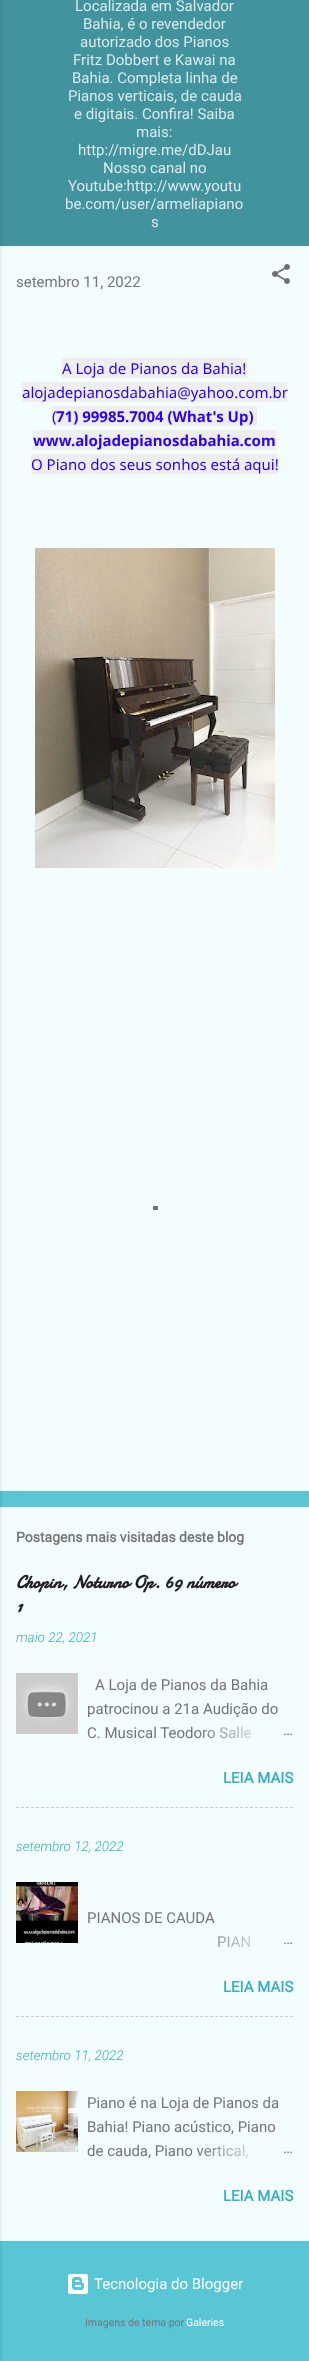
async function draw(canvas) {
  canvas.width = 309
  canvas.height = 2361
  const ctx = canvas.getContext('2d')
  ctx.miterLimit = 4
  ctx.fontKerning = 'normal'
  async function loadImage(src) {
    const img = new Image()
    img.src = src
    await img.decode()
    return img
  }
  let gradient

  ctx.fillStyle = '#58c6d5'
  ctx.fillRect(0, 0, 309, 2361)
  ctx.fillStyle = '#41939d'
  ctx.fillRect(0, 0, 309, 246)
  ctx.fillStyle = '#f3fdfe'
  ctx.fillRect(0, 246, 309, 1245)
  ctx.fillRect(0, 1507, 309, 734)
  ctx.fillStyle = '#0000001a'
  ctx.filter = 'blur(1.5px)'
  ctx.beginPath()
  ctx.rect(-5, 1, 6, 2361)
  ctx.fill()
  ctx.filter = 'none'
  ctx.font = '15px Roboto'
  ctx.fillStyle = '#d9e9eb'
  ctx.fillText('Localizada em Salvador', 75, 11)
  ctx.fillText('Bahia, é o revendedor', 83, 29)
  ctx.fillText('autorizado dos Pianos', 80, 47)
  ctx.fillText('Fritz Dobbert e Kawai na', 73, 65)
  ctx.fillText('Bahia. Completa linha de', 72, 83)
  ctx.fillText('Pianos verticais, de cauda', 68, 101)
  ctx.fillText('e digitais. Confira! Saiba', 74, 119)
  ctx.fillText('mais:', 136, 137)
  ctx.fillText('http://migre.me/dDJau', 78, 155)
  ctx.fillText('Nosso canal no', 103, 173)
  ctx.fillText('Youtube:http://www.youtu', 68, 191)
  ctx.fillText('be.com/user/armeliapiano', 65, 209)
  ctx.fillText('s', 151, 227)
  ctx.fillStyle = '#757575'
  ctx.fillText('setembro 11, 2022', 16, 287)
  ctx.drawImage(await loadImage('image0.png'), 272, 264, 18, 20)
  ctx.fillStyle = '#eee'
  ctx.fillRect(62, 358, 185, 20)
  ctx.font = '15px Noto Sans'
  ctx.fillStyle = '#2b00fe'
  ctx.fillText('A Loja de Pianos da Bahia!', 62, 374)
  ctx.fillStyle = '#eee'
  ctx.fillRect(22, 382, 265, 20)
  ctx.fillStyle = '#2b00fe'
  ctx.fillText('alojadepianosdabahia@yahoo.com.br', 22, 398)
  ctx.fillStyle = '#eee'
  ctx.fillRect(52, 406, 205, 20)
  ctx.fillStyle = '#2b00fe'
  ctx.fillText('(', 52, 422)
  ctx.font = 'bold 15px Noto Sans'
  ctx.fillText('71) 99985.7004 (What\'s Up)', 56, 422)
  ctx.fillStyle = '#eee'
  ctx.fillRect(33, 430, 243, 20)
  ctx.fillStyle = '#2b00fe'
  ctx.fillText('www.alojadepianosdabahia.com', 33, 446)
  ctx.fillStyle = '#eee'
  ctx.fillRect(31, 454, 247, 20)
  ctx.font = '15px Noto Sans'
  ctx.fillStyle = '#2b00fe'
  ctx.fillText('O Piano dos seus sonhos está aqui!', 31, 470)
  ctx.drawImage(await loadImage('image1.png'), 35, 548, 240, 320)
  ctx.font = 'bold 14px Roboto'
  ctx.fillStyle = '#757575'
  ctx.fillText('Postagens mais visitadas deste blog', 16, 1542)
  ctx.font = 'bold 18px Damion'
  ctx.fillStyle = '#212121'
  ctx.fillText('Chopin, Noturno Op. 69 número', 16, 1588)
  ctx.fillText('1', 16, 1612)
  ctx.font = 'italic 300 13.5px Roboto'
  ctx.fillStyle = '#37afc0'
  ctx.fillText('maio 22, 2021', 16, 1642)
  ctx.drawImage(await loadImage('image2.png'), 16, 1673, 62, 61)
  ctx.font = '15px Roboto'
  ctx.fillStyle = '#757575'
  ctx.fillText('A Loja de Pianos da Bahia', 95, 1690)
  ctx.fillText('patrocinou a 21a Audição do', 87, 1714)
  ctx.fillText('C. Musical Teodoro Salle', 87, 1738)
  gradient = ctx.createLinearGradient(293, 1733, 197, 1733)
  gradient.addColorStop(0, '#f3fdfe')
  gradient.addColorStop(0.2, '#f3fdfe')
  gradient.addColorStop(1, '#f3fdfe00')
  ctx.fillStyle = gradient
  ctx.fillRect(199, 1726, 53, 13)
  ctx.fillStyle = '#757575'
  ctx.fillText('…', 283, 1735)
  ctx.font = 'bold 15px Roboto'
  ctx.fillStyle = '#37afc0'
  ctx.fillText('LEIA MAIS', 223, 1783)
  ctx.beginPath()
  ctx.moveTo(16, 1807.5)
  ctx.lineTo(293, 1807.5)
  ctx.strokeStyle = '#ccc'
  ctx.setLineDash([3, 1.98])
  ctx.stroke()
  ctx.font = 'italic 300 13.5px Roboto'
  ctx.fillText('setembro 12, 2022', 16, 1851)
  ctx.drawImage(await loadImage('image3.png'), 16, 1882, 62, 61)
  ctx.font = '15px Roboto'
  ctx.fillStyle = '#757575'
  ctx.fillText('PIANOS DE CAUDA', 87, 1923)
  ctx.fillText('PIAN', 217, 1947)
  gradient = ctx.createLinearGradient(293, 1942, 197, 1942)
  gradient.addColorStop(0, '#f3fdfe')
  gradient.addColorStop(0.2, '#f3fdfe')
  gradient.addColorStop(1, '#f3fdfe00')
  ctx.fillStyle = gradient
  ctx.fillRect(218, 1936, 33, 11)
  ctx.fillStyle = '#757575'
  ctx.fillText('…', 283, 1944)
  ctx.font = 'bold 15px Roboto'
  ctx.fillStyle = '#37afc0'
  ctx.fillText('LEIA MAIS', 223, 1992)
  ctx.beginPath()
  ctx.moveTo(16, 2016.5)
  ctx.lineTo(293, 2016.5)
  ctx.stroke()
  ctx.font = 'italic 300 13.5px Roboto'
  ctx.fillText('setembro 11, 2022', 16, 2060)
  ctx.drawImage(await loadImage('image4.png'), 16, 2091, 62, 61)
  ctx.font = '15px Roboto'
  ctx.fillStyle = '#757575'
  ctx.fillText('Piano é na Loja de Pianos da', 87, 2108)
  ctx.fillText('Bahia! Piano acústico, Piano', 87, 2132)
  ctx.fillText('de cauda, Piano vertical,', 87, 2156)
  gradient = ctx.createLinearGradient(293, 2151, 197, 2151)
  gradient.addColorStop(0, '#f3fdfe')
  gradient.addColorStop(0.2, '#f3fdfe')
  gradient.addColorStop(1, '#f3fdfe00')
  ctx.fillStyle = gradient
  ctx.fillRect(199, 2144, 49, 14)
  ctx.fillStyle = '#757575'
  ctx.fillText('…', 283, 2153)
  ctx.font = 'bold 15px Roboto'
  ctx.fillStyle = '#37afc0'
  ctx.fillText('LEIA MAIS', 223, 2201)
  ctx.drawImage(await loadImage('image5.png'), 68, 2274, 20, 20)
  ctx.font = '15px Roboto'
  ctx.fillStyle = '#fff'
  ctx.fillText('Tecnologia do Blogger', 94, 2289)
  ctx.font = '10.5px Roboto'
  ctx.fillStyle = '#757575'
  ctx.fillText('Imagens de tema por', 85, 2326)
  ctx.fillStyle = '#fff'
  ctx.fillText('Galeries', 186, 2326)
  ctx.fillStyle = '#707475'
  ctx.fillRect(153, 1206, 5, 4)
}

draw(document.querySelector('canvas'))
